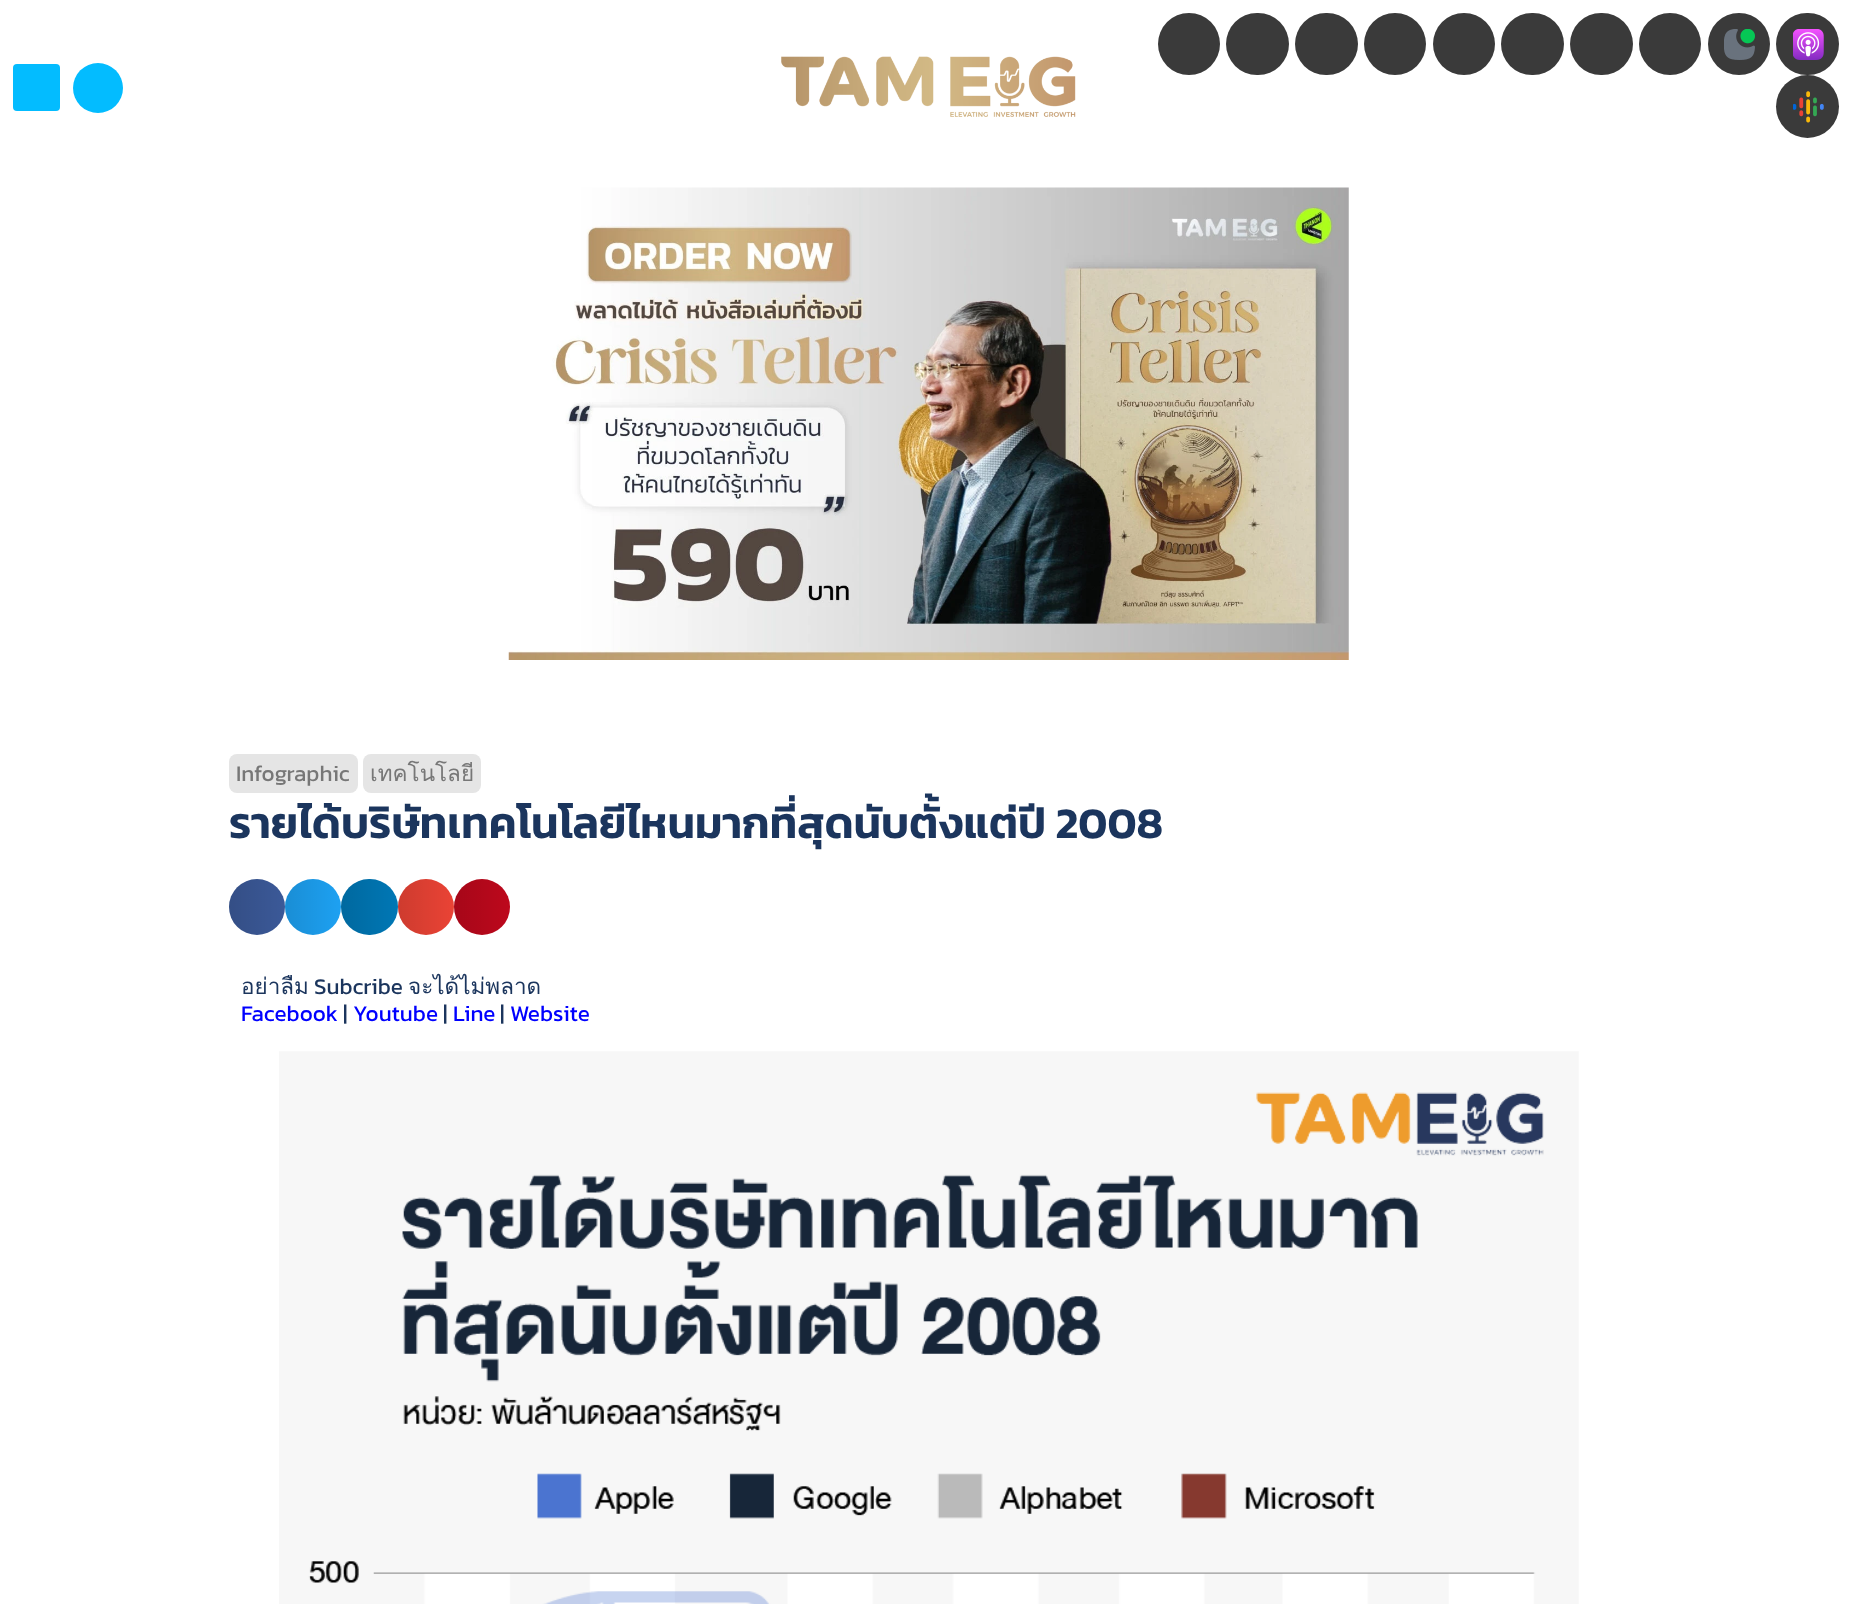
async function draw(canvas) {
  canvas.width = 1857
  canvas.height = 1604
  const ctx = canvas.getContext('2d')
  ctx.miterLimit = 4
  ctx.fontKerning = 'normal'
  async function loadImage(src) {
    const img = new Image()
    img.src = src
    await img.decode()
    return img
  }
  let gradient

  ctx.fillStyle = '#fff'
  ctx.fillRect(0, 0, 1857, 1604)
  ctx.fillStyle = '#03bcff'
  ctx.beginPath()
  ctx.roundRect(13, 64, 47, 47, 4)
  ctx.fill()
  ctx.beginPath()
  ctx.arc(98, 88, 25, 0, 2 * Math.PI)
  ctx.fill()
  ctx.drawImage(await loadImage('image0.png'), 781, 56, 295, 61)
  ctx.fillStyle = '#3a3a3a'
  ctx.beginPath()
  ctx.arc(1189, 44, 31, 0, 2 * Math.PI)
  ctx.fill()
  ctx.beginPath()
  ctx.roundRect(1226, 13, 63, 62, 31)
  ctx.fill()
  ctx.beginPath()
  ctx.roundRect(1295, 13, 63, 62, 31)
  ctx.fill()
  ctx.beginPath()
  ctx.arc(1395, 44, 31, 0, 2 * Math.PI)
  ctx.fill()
  ctx.beginPath()
  ctx.arc(1464, 44, 31, 0, 2 * Math.PI)
  ctx.fill()
  ctx.beginPath()
  ctx.roundRect(1501, 13, 63, 62, 31)
  ctx.fill()
  ctx.beginPath()
  ctx.roundRect(1570, 13, 63, 62, 31)
  ctx.fill()
  ctx.beginPath()
  ctx.arc(1670, 44, 31, 0, 2 * Math.PI)
  ctx.fill()
  ctx.beginPath()
  ctx.arc(1739, 44, 31, 0, 2 * Math.PI)
  ctx.fill()
  ctx.drawImage(await loadImage('image1.png'), 1724, 29, 31, 31)
  ctx.beginPath()
  ctx.roundRect(1776, 13, 63, 62, 31)
  ctx.fill()
  ctx.drawImage(await loadImage('image2.png'), 1793, 29, 31, 31)
  ctx.beginPath()
  ctx.arc(1807.5, 106.5, 31.5, 0, 2 * Math.PI)
  ctx.fill()
  ctx.drawImage(await loadImage('image3.png'), 1793, 91, 31, 32)
  ctx.drawImage(await loadImage('image4.png'), 508, 187, 841, 473)
  ctx.fillStyle = '#e5e5e5'
  ctx.beginPath()
  ctx.roundRect(229, 754, 129, 39, 8)
  ctx.fill()
  ctx.font = '22.5px Kanit'
  ctx.fillStyle = '#777'
  ctx.fillText('Infographic', 236, 781)
  ctx.fillStyle = '#e5e5e5'
  ctx.beginPath()
  ctx.roundRect(363, 754, 118, 39, 8)
  ctx.fill()
  ctx.font = '22.5px Loma'
  ctx.fillStyle = '#777'
  ctx.fillText('เทคโนโลยี', 370, 781)
  ctx.font = '600 44px Kanit'
  ctx.fillStyle = '#1b355d'
  ctx.fillText('รายได้บริษัทเทคโนโลยีไหนมากที่สุดนับตั้งแต่ปี 2008', 229, 838)
  ctx.fillStyle = '#3b5998'
  ctx.beginPath()
  ctx.arc(257, 907, 28, 0, 2 * Math.PI)
  ctx.fill()
  gradient = ctx.createLinearGradient(229, 907, 285, 907)
  gradient.addColorStop(0, '#0000001f')
  gradient.addColorStop(1, '#00000000')
  ctx.fillStyle = gradient
  ctx.beginPath()
  ctx.arc(257, 907, 28, 0, 2 * Math.PI)
  ctx.fill()
  ctx.fillStyle = '#1da1f2'
  ctx.beginPath()
  ctx.arc(313, 907, 28, 0, 2 * Math.PI)
  ctx.fill()
  gradient = ctx.createLinearGradient(285, 907, 341, 907)
  gradient.addColorStop(0, '#0000001f')
  gradient.addColorStop(1, '#00000000')
  ctx.fillStyle = gradient
  ctx.beginPath()
  ctx.arc(313, 907, 28, 0, 2 * Math.PI)
  ctx.fill()
  ctx.fillStyle = '#0077b5'
  ctx.beginPath()
  ctx.roundRect(341, 879, 57, 56, 28)
  ctx.fill()
  gradient = ctx.createLinearGradient(341, 907, 398, 907)
  gradient.addColorStop(0, '#0000001f')
  gradient.addColorStop(1, '#00000000')
  ctx.fillStyle = gradient
  ctx.beginPath()
  ctx.roundRect(341, 879, 57, 56, 28)
  ctx.fill()
  ctx.fillStyle = '#ea4335'
  ctx.beginPath()
  ctx.arc(426, 907, 28, 0, 2 * Math.PI)
  ctx.fill()
  gradient = ctx.createLinearGradient(398, 907, 454, 907)
  gradient.addColorStop(0, '#0000001f')
  gradient.addColorStop(1, '#00000000')
  ctx.fillStyle = gradient
  ctx.beginPath()
  ctx.arc(426, 907, 28, 0, 2 * Math.PI)
  ctx.fill()
  ctx.fillStyle = '#bd081c'
  ctx.beginPath()
  ctx.arc(482, 907, 28, 0, 2 * Math.PI)
  ctx.fill()
  gradient = ctx.createLinearGradient(454, 907, 510, 907)
  gradient.addColorStop(0, '#0000001f')
  gradient.addColorStop(1, '#00000000')
  ctx.fillStyle = gradient
  ctx.beginPath()
  ctx.arc(482, 907, 28, 0, 2 * Math.PI)
  ctx.fill()
  ctx.font = '22.5px Loma'
  ctx.fillStyle = '#1b355d'
  ctx.fillText('อย่าลืม', 241, 994)
  ctx.font = '22.5px Kanit'
  ctx.fillText('Subcribe', 314, 994)
  ctx.font = '22.5px Loma'
  ctx.fillText('จะได้ไม่พลาด', 408, 994)
  ctx.font = '22.5px Kanit'
  ctx.fillStyle = '#00f'
  ctx.fillText('Facebook', 241, 1021)
  ctx.fillStyle = '#1b355d'
  ctx.fillText('|', 343, 1021)
  ctx.fillStyle = '#00f'
  ctx.fillText('Youtube', 353, 1021)
  ctx.fillStyle = '#1b355d'
  ctx.fillText('|', 443, 1021)
  ctx.fillStyle = '#00f'
  ctx.fillText('Line', 453, 1021)
  ctx.fillStyle = '#1b355d'
  ctx.fillText('|', 500, 1021)
  ctx.fillStyle = '#00f'
  ctx.fillText('Website', 510, 1021)
  ctx.drawImage(await loadImage('image5.png'), 279, 1051, 1300, 553)
}

draw(document.querySelector('canvas'))
